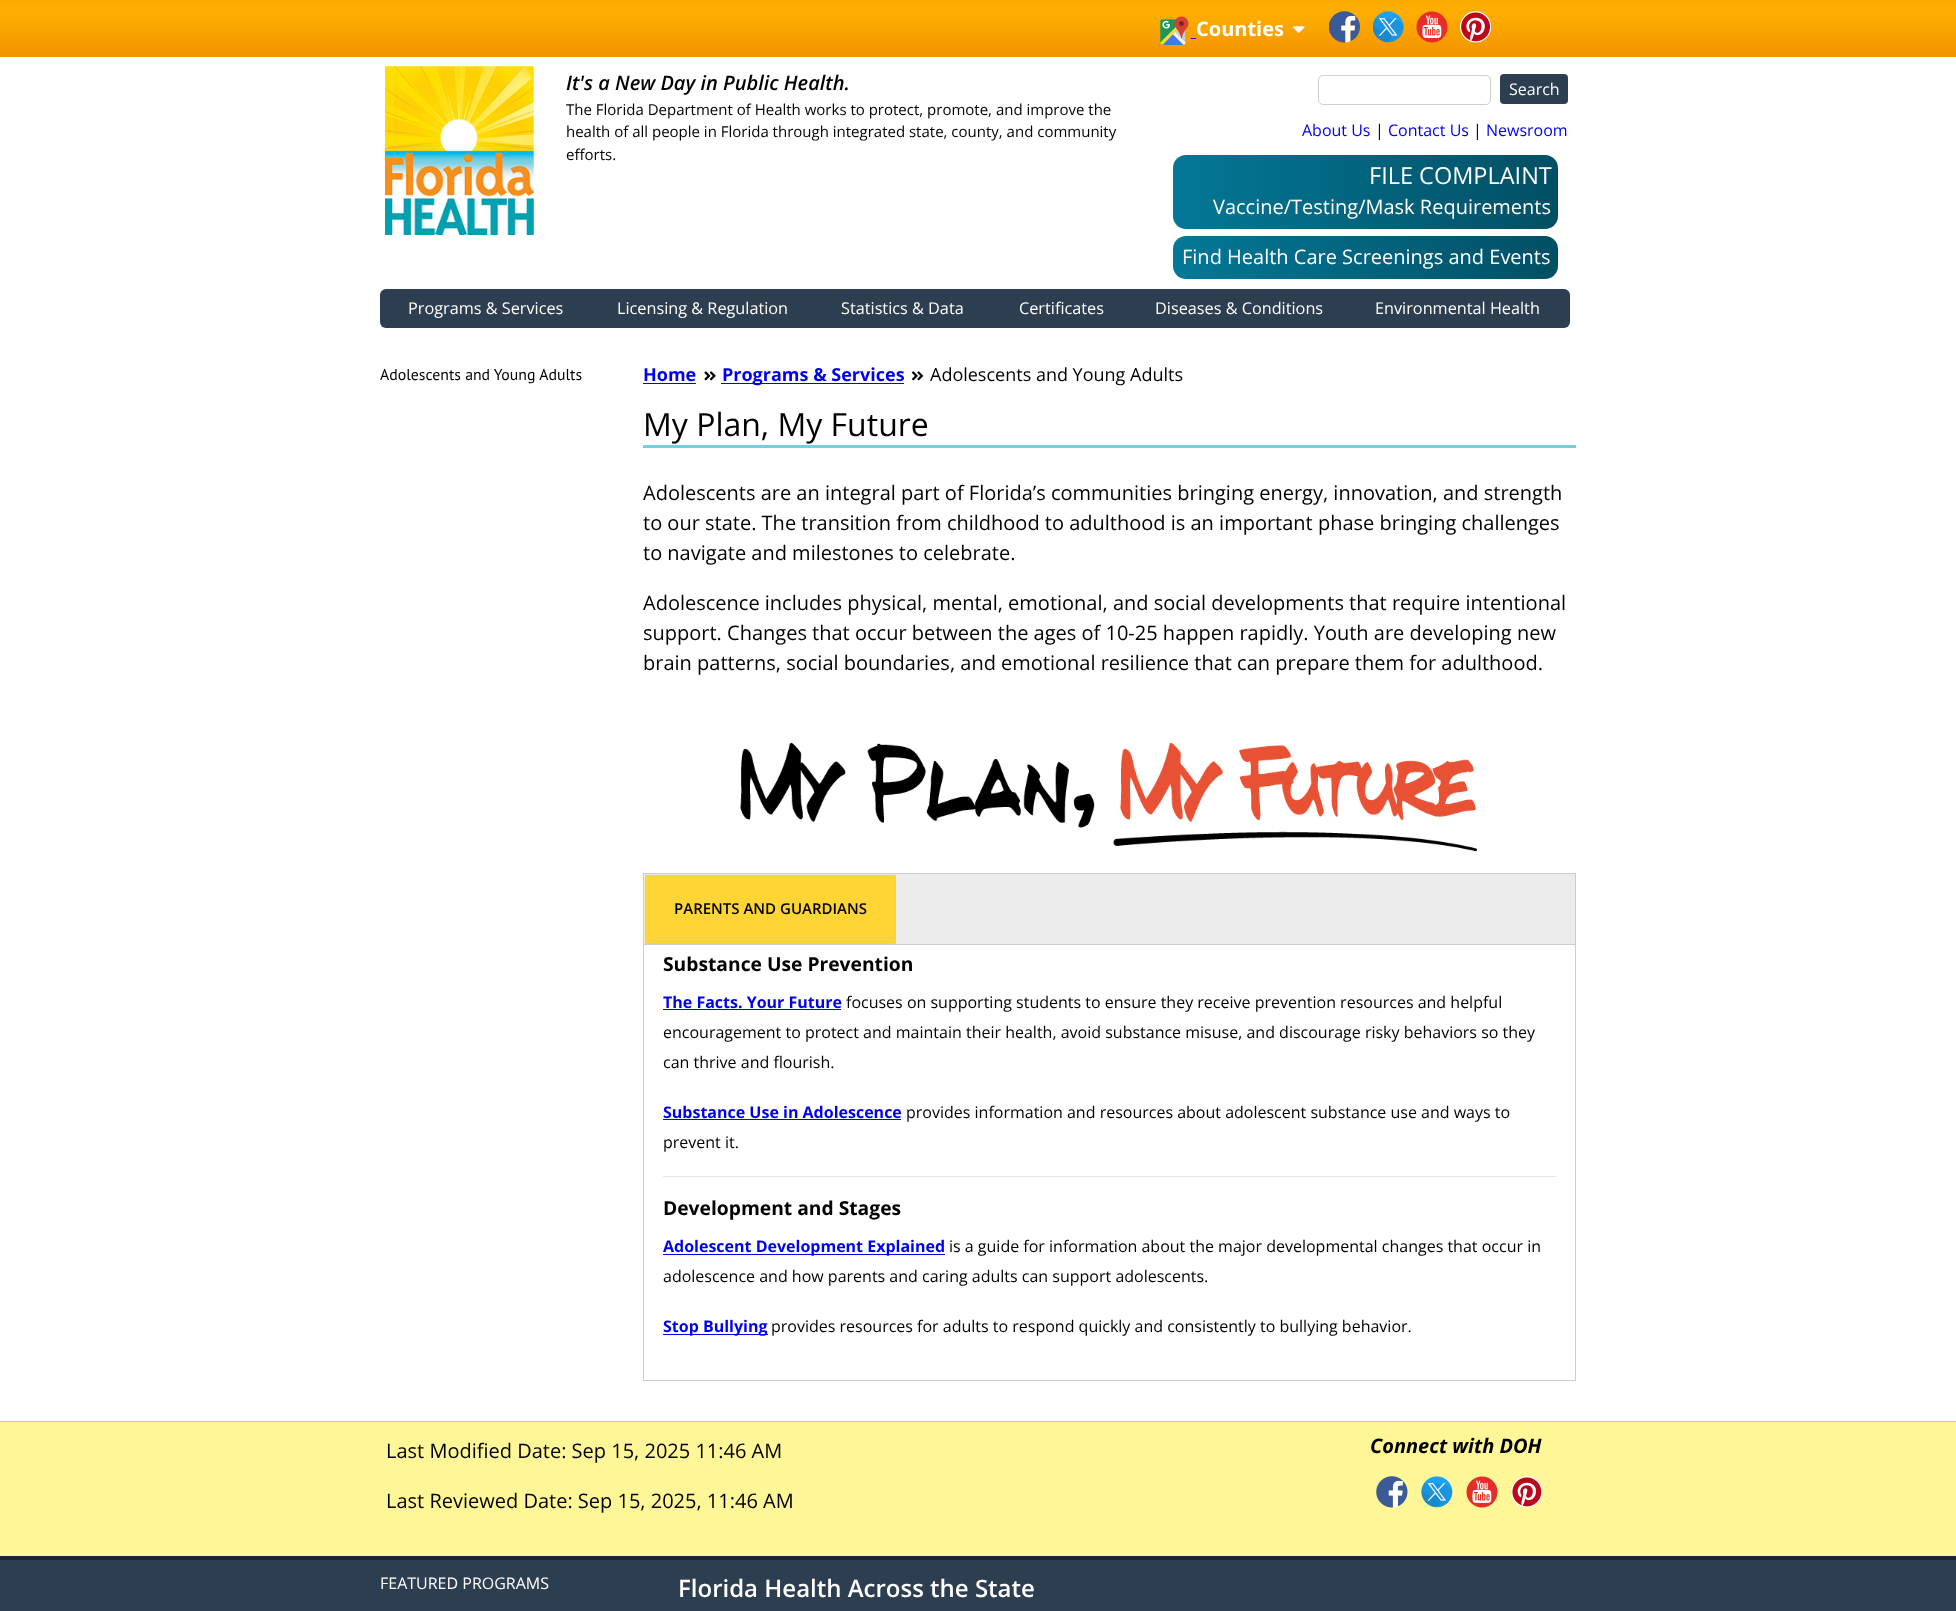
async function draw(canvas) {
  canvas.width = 1956
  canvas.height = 1611
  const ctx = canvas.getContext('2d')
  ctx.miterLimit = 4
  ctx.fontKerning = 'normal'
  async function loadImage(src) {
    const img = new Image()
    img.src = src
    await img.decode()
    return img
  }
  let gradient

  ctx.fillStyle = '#fff'
  ctx.fillRect(0, 0, 1956, 1611)
  gradient = ctx.createLinearGradient(978, 0, 978, 54)
  gradient.addColorStop(0, '#fbab00')
  gradient.addColorStop(0.23, '#ffae01')
  gradient.addColorStop(1, '#f29500')
  ctx.fillStyle = gradient
  ctx.fillRect(0, 0, 1956, 54)
  ctx.fillStyle = '#f29500'
  ctx.fillRect(0, 54, 1956, 3)
  ctx.drawImage(await loadImage('image0.png'), 1160, 16, 29, 29)
  ctx.font = 'bold 20px Open Sans'
  ctx.fillStyle = '#fff'
  ctx.fillText('Counties', 1196, 36)
  ctx.drawImage(await loadImage('image1.png'), 1293, 26, 12, 7)
  ctx.fillStyle = '#00e'
  ctx.fillRect(1191, 38, 5, 1)
  ctx.drawImage(await loadImage('image2.png'), 1329, 11, 31, 32)
  ctx.drawImage(await loadImage('image3.png'), 1373, 11, 31, 32)
  ctx.drawImage(await loadImage('image4.png'), 1416, 11, 32, 32)
  ctx.drawImage(await loadImage('image5.png'), 1460, 11, 31, 32)
  ctx.drawImage(await loadImage('image6.png'), 385, 66, 149, 169)
  ctx.font = 'italic 600 20px Open Sans'
  ctx.fillStyle = '#000'
  ctx.fillText('It\'s a New Day in Public Health.', 566, 90)
  ctx.font = '15px Open Sans'
  ctx.fillText('The Florida Department of Health works to protect, promote, and improve the', 566, 115)
  ctx.fillText('health of all people in Florida through integrated state, county, and community', 566, 137)
  ctx.fillText('efforts.', 566, 160)
  ctx.beginPath()
  ctx.roundRect(1318.5, 75.5, 172, 29, 4.5)
  ctx.strokeStyle = '#cfcfcf'
  ctx.stroke()
  ctx.fillStyle = '#2c3e50'
  ctx.beginPath()
  ctx.roundRect(1500, 74, 68, 30, 4)
  ctx.fill()
  ctx.font = '16px Open Sans'
  ctx.fillStyle = '#fff'
  ctx.fillText('Search', 1509, 95)
  ctx.fillStyle = '#00e'
  ctx.fillText('About Us', 1302, 136)
  ctx.fillStyle = '#000'
  ctx.fillText('|', 1375, 136)
  ctx.fillStyle = '#00e'
  ctx.fillText('Contact Us', 1388, 136)
  ctx.fillStyle = '#000'
  ctx.fillText('|', 1473, 136)
  ctx.fillStyle = '#00e'
  ctx.fillText('Newsroom', 1486, 136)
  gradient = ctx.createLinearGradient(1173, 192, 1558, 192)
  gradient.addColorStop(0, '#037897')
  gradient.addColorStop(1, '#024f64')
  ctx.fillStyle = gradient
  ctx.beginPath()
  ctx.roundRect(1173, 155, 385, 74, 13)
  ctx.fill()
  ctx.font = '23.5px Open Sans'
  ctx.fillStyle = '#fff'
  ctx.fillText('FILE COMPLAINT', 1369, 184)
  ctx.font = '20px Open Sans'
  ctx.fillText('Vaccine/Testing/Mask Requirements', 1213, 214)
  gradient = ctx.createLinearGradient(1173, 258, 1558, 258)
  gradient.addColorStop(0, '#037897')
  gradient.addColorStop(1, '#024f64')
  ctx.fillStyle = gradient
  ctx.beginPath()
  ctx.roundRect(1173, 236, 385, 43, 13)
  ctx.fill()
  ctx.fillStyle = '#fff'
  ctx.fillText('Find Health Care Screenings and Events', 1182, 264)
  ctx.fillStyle = '#2c3e50'
  ctx.beginPath()
  ctx.roundRect(380, 289, 1190, 39, 6)
  ctx.fill()
  ctx.font = '16.25px Open Sans'
  ctx.fillStyle = '#fff'
  ctx.fillText('Programs & Services', 408, 314)
  ctx.fillText('Licensing & Regulation', 617, 314)
  ctx.fillText('Statistics & Data', 841, 314)
  ctx.fillText('Certificates', 1019, 314)
  ctx.fillText('Diseases & Conditions', 1155, 314)
  ctx.fillText('Environmental Health', 1375, 314)
  ctx.font = '15.8px PT Sans'
  ctx.fillStyle = '#000'
  ctx.fillText('Adolescents and Young Adults', 380, 380)
  ctx.font = 'bold 18px Open Sans'
  ctx.fillStyle = '#00e'
  ctx.fillText('Home', 643, 381)
  ctx.fillRect(643, 383, 53, 1)
  ctx.drawImage(await loadImage('image7.png'), 704, 371, 12, 10)
  ctx.fillRect(721, 383, 183, 1)
  ctx.fillText('Programs & Services', 722, 381)
  ctx.drawImage(await loadImage('image8.png'), 912, 371, 12, 10)
  ctx.font = '18px Open Sans'
  ctx.fillStyle = '#000'
  ctx.fillText('Adolescents and Young Adults', 930, 381)
  ctx.fillStyle = '#76cee1'
  ctx.fillRect(643, 445, 933, 3)
  ctx.font = '32px Open Sans'
  ctx.fillStyle = '#000'
  ctx.fillText('My Plan, My Future', 643, 436)
  ctx.font = '20px Open Sans'
  ctx.fillText('Adolescents are an integral part of Florida’s communities bringing energy, innovation, and strength', 643, 500)
  ctx.fillText('to our state. The transition from childhood to adulthood is an important phase bringing challenges', 643, 530)
  ctx.fillText('to navigate and milestones to celebrate.', 643, 560)
  ctx.fillText('Adolescence includes physical, mental, emotional, and social developments that require intentional', 643, 610)
  ctx.fillText('support. Changes that occur between the ages of 10-25 happen rapidly. Youth are developing new', 643, 640)
  ctx.fillText('brain patterns, social boundaries, and emotional resilience that can prepare them for adulthood.', 643, 670)
  ctx.drawImage(await loadImage('image9.png'), 740, 742, 737, 110)
  ctx.fillStyle = '#ebebeb'
  ctx.fillRect(644, 874, 931, 70)
  ctx.fillStyle = '#ccc'
  ctx.fillRect(643, 873, 933, 1)
  ctx.fillRect(1575, 873, 1, 71)
  ctx.fillRect(643, 873, 1, 71)
  ctx.fillStyle = '#ffd435'
  ctx.beginPath()
  ctx.rect(645.5, 875.5, 250, 68)
  ctx.fill()
  ctx.strokeStyle = '#ccc'
  ctx.stroke()
  ctx.font = '600 15px Open Sans'
  ctx.fillStyle = '#000'
  ctx.fillText('PARENTS AND GUARDIANS', 674, 914)
  ctx.strokeRect(643.5, 944.5, 932, 436)
  ctx.font = 'bold 19.25px Open Sans'
  ctx.fillText('Substance Use Prevention', 663, 971)
  ctx.font = 'bold 16px Open Sans'
  ctx.fillStyle = '#00e'
  ctx.fillText('The Facts. Your Future', 663, 1008)
  ctx.fillRect(663, 1009, 178, 1)
  ctx.font = '16px Open Sans'
  ctx.fillStyle = '#000'
  ctx.fillText('focuses on supporting students to ensure they receive prevention resources and helpful', 846, 1008)
  ctx.fillText('encouragement to protect and maintain their health, avoid substance misuse, and discourage risky behaviors so they', 663, 1038)
  ctx.fillText('can thrive and flourish.', 663, 1068)
  ctx.font = 'bold 16px Open Sans'
  ctx.fillStyle = '#00e'
  ctx.fillText('Substance Use in Adolescence', 663, 1118)
  ctx.fillRect(663, 1119, 238, 1)
  ctx.font = '16px Open Sans'
  ctx.fillStyle = '#000'
  ctx.fillText('provides information and resources about adolescent substance use and ways to', 906, 1118)
  ctx.fillText('prevent it.', 663, 1148)
  ctx.fillStyle = '#e6e6e6'
  ctx.fillRect(663, 1176, 893, 1)
  ctx.font = 'bold 19.25px Open Sans'
  ctx.fillStyle = '#000'
  ctx.fillText('Development and Stages', 663, 1215)
  ctx.fillStyle = '#00e'
  ctx.fillRect(663, 1254, 282, 1)
  ctx.font = 'bold 16px Open Sans'
  ctx.fillText('Adolescent Development Explained', 663, 1252)
  ctx.font = '16px Open Sans'
  ctx.fillStyle = '#000'
  ctx.fillText('is a guide for information about the major developmental changes that occur in', 949, 1252)
  ctx.fillText('adolescence and how parents and caring adults can support adolescents.', 663, 1282)
  ctx.fillStyle = '#00e'
  ctx.fillRect(663, 1334, 105, 1)
  ctx.font = 'bold 16px Open Sans'
  ctx.fillText('Stop Bullying', 663, 1332)
  ctx.font = '16px Open Sans'
  ctx.fillStyle = '#000'
  ctx.fillText('provides resources for adults to respond quickly and consistently to bullying behavior.', 771, 1332)
  ctx.fillStyle = '#fff797'
  ctx.fillRect(0, 1422, 1956, 134)
  ctx.fillStyle = '#ead900'
  ctx.fillRect(0, 1421, 1956, 1)
  ctx.font = '20px Open Sans'
  ctx.fillStyle = '#000'
  ctx.fillText('Last Modified Date: Sep 15, 2025 11:46 AM', 386, 1458)
  ctx.fillText('Last Reviewed Date: Sep 15, 2025, 11:46 AM', 386, 1508)
  ctx.font = 'italic bold 20px Open Sans'
  ctx.fillText('Connect with DOH', 1370, 1453)
  ctx.drawImage(await loadImage('image10.png'), 1376, 1476, 32, 32)
  ctx.drawImage(await loadImage('image11.png'), 1421, 1476, 32, 32)
  ctx.drawImage(await loadImage('image12.png'), 1466, 1476, 32, 32)
  ctx.drawImage(await loadImage('image13.png'), 1511, 1476, 32, 32)
  ctx.fillStyle = '#2c3e50'
  ctx.fillRect(0, 1560, 1956, 51)
  ctx.fillStyle = '#1b2631'
  ctx.fillRect(0, 1556, 1956, 4)
  ctx.font = '16px Open Sans'
  ctx.fillStyle = '#fff'
  ctx.fillText('FEATURED PROGRAMS', 380, 1589)
  ctx.font = '600 24px Open Sans'
  ctx.fillText('Florida Health Across the State', 678, 1597)
}

draw(document.querySelector('canvas'))
